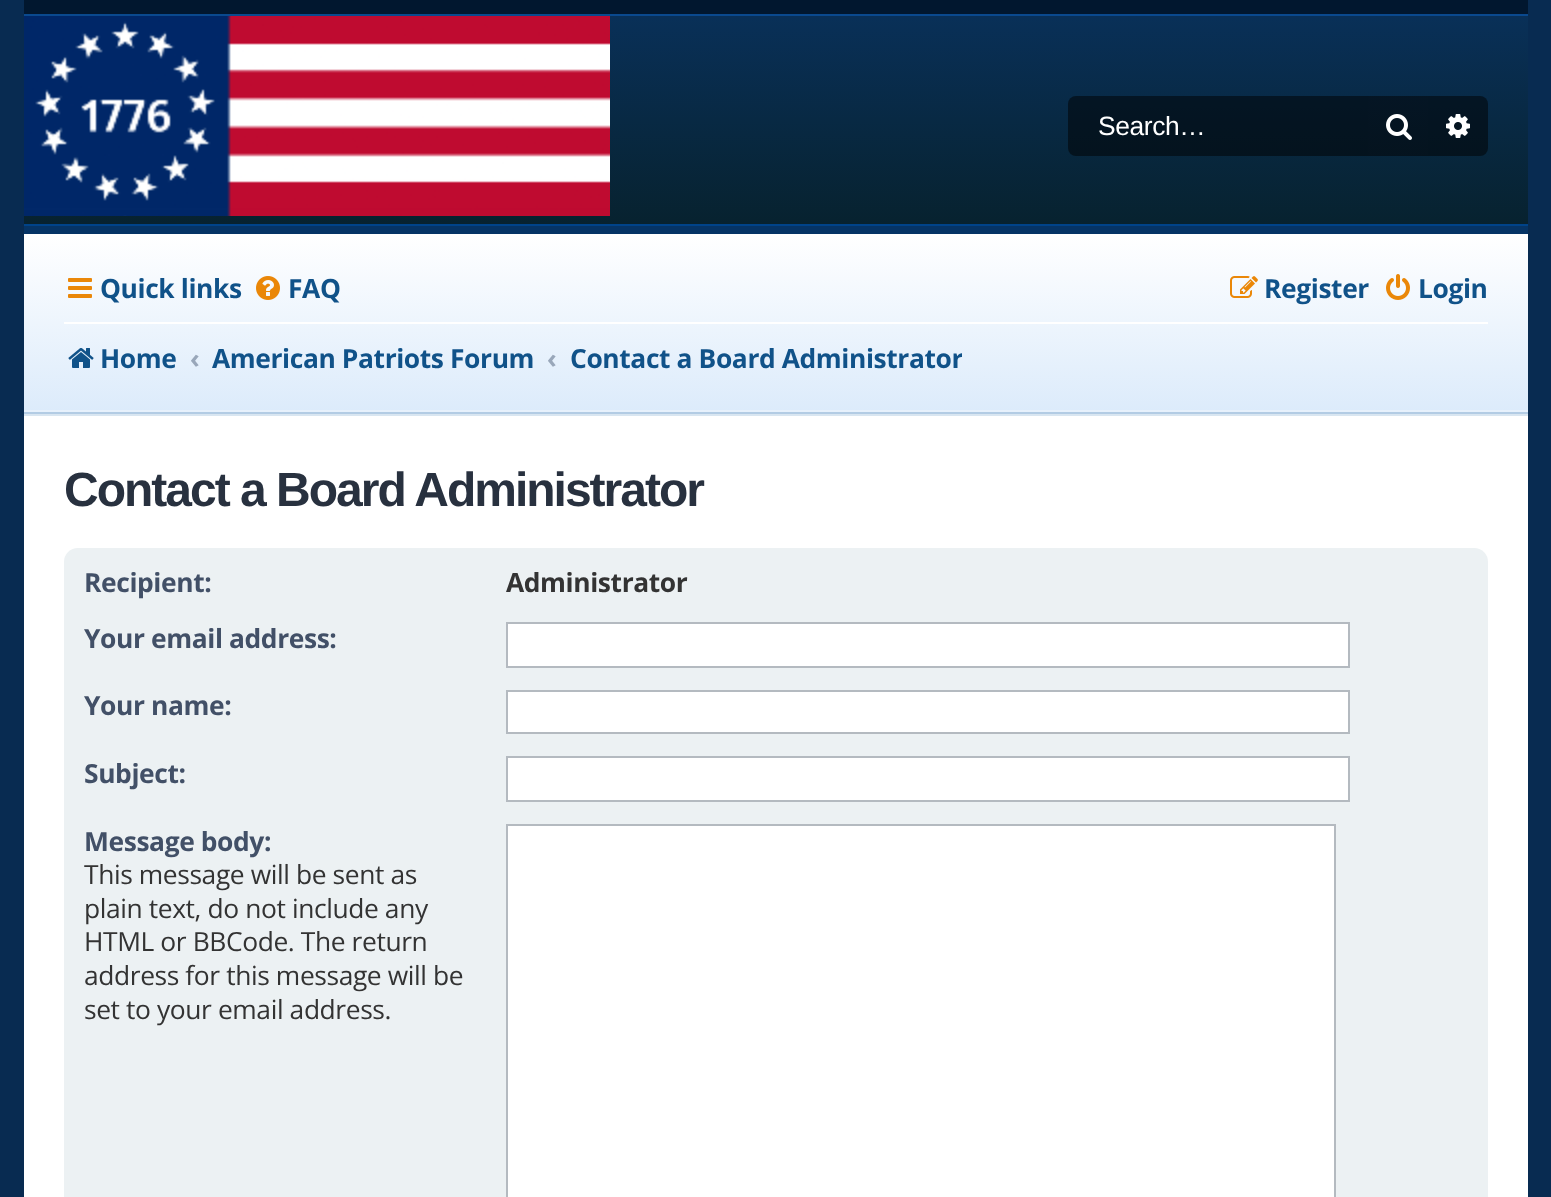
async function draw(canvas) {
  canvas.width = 1551
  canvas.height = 1197
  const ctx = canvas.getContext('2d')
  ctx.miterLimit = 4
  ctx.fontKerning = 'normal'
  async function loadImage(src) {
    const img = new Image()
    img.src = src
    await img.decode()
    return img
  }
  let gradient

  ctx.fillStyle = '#082b51'
  ctx.fillRect(0, 0, 1551, 1197)
  ctx.fillStyle = '#fff'
  ctx.fillRect(24, 416, 1504, 781)
  ctx.fillStyle = '#01172f'
  ctx.fillRect(24, 0, 1504, 14)
  gradient = ctx.createLinearGradient(776, 224, 776, 16)
  gradient.addColorStop(0, '#07222f')
  gradient.addColorStop(1, '#093058')
  ctx.fillStyle = gradient
  ctx.fillRect(24, 16, 1504, 208)
  gradient = ctx.createLinearGradient(776, 224, 776, 16)
  gradient.addColorStop(0, '#041118')
  gradient.addColorStop(1, '#05182c')
  ctx.fillStyle = gradient
  ctx.fillRect(1368, 96, 60, 60)
  ctx.fillStyle = '#0a498e'
  ctx.fillRect(24, 14, 1504, 2)
  ctx.fillStyle = '#004389'
  ctx.fillRect(24, 224, 1504, 2)
  ctx.drawImage(await loadImage('image0.png'), 24, 16, 586, 200)
  ctx.fillStyle = '#00000080'
  ctx.beginPath()
  ctx.roundRect(1068, 96, 300, 60, [8, 0, 0, 8])
  ctx.fill()
  ctx.letterSpacing = '-0.4px'
  ctx.font = '26.4px Liberation Sans'
  ctx.fillStyle = '#fff'
  ctx.fillText('Search…', 1098, 135)
  ctx.drawImage(await loadImage('image1.png'), 1386, 114, 26, 26)
  ctx.fillStyle = '#00000080'
  ctx.beginPath()
  ctx.roundRect(1428, 96, 60, 60, [0, 8, 8, 0])
  ctx.fill()
  ctx.drawImage(await loadImage('image2.png'), 1446, 114, 24, 24)
  ctx.fillStyle = '#d9e6f1'
  ctx.fillRect(24, 414, 1504, 2)
  gradient = ctx.createLinearGradient(776, 412, 776, 234)
  gradient.addColorStop(0, '#dcebfb')
  gradient.addColorStop(1, '#fff')
  ctx.fillStyle = gradient
  ctx.fillRect(24, 234, 1504, 176)
  ctx.fillStyle = '#e7f1fc'
  ctx.fillRect(24, 410, 1504, 2)
  ctx.fillStyle = '#063465'
  ctx.fillRect(24, 226, 1504, 8)
  ctx.fillStyle = '#b3cce4'
  ctx.fillRect(24, 412, 1504, 2)
  ctx.drawImage(await loadImage('image3.png'), 68, 278, 24, 20)
  ctx.font = 'bold 26.4px Open Sans'
  ctx.fillStyle = '#105289'
  ctx.fillText('Quick links', 100, 298)
  ctx.drawImage(await loadImage('image4.png'), 256, 276, 24, 24)
  ctx.fillText('FAQ', 288, 298)
  ctx.drawImage(await loadImage('image5.png'), 1230, 276, 28, 22)
  ctx.fillText('Register', 1264, 298)
  ctx.drawImage(await loadImage('image6.png'), 1386, 274, 24, 26)
  ctx.fillText('Login', 1418, 298)
  ctx.fillStyle = '#fff'
  ctx.fillRect(64, 322, 1424, 2)
  ctx.drawImage(await loadImage('image7.png'), 68, 348, 26, 20)
  ctx.fillStyle = '#105289'
  ctx.fillText('Home', 100, 368)
  ctx.fillStyle = '#99a7ba'
  ctx.fillText('‹', 190, 368)
  ctx.fillStyle = '#105289'
  ctx.fillText('American Patriots Forum', 212, 368)
  ctx.fillStyle = '#99a7ba'
  ctx.fillText('‹', 547, 368)
  ctx.save()
  ctx.beginPath()
  ctx.rect(570, 330, 392, 58)
  ctx.clip()
  ctx.fillStyle = '#105289'
  ctx.fillText('Contact a Board Administrator', 570, 368)
  ctx.restore()
  ctx.letterSpacing = '-2px'
  ctx.font = 'bold 48px Liberation Sans'
  ctx.fillStyle = '#28313f'
  ctx.fillText('Contact a Board Administrator', 64, 506)
  ctx.fillStyle = '#ecf1f3'
  ctx.beginPath()
  ctx.roundRect(64, 548, 1424, 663, 14)
  ctx.fill()
  ctx.letterSpacing = '-0.4px'
  ctx.font = 'bold 26.4px Open Sans'
  ctx.fillStyle = '#425067'
  ctx.fillText('Recipient:', 84, 592)
  ctx.fillStyle = '#333'
  ctx.fillText('Administrator', 506, 592)
  ctx.fillStyle = '#425067'
  ctx.fillText('Your email address:', 84, 648)
  ctx.fillStyle = '#fff'
  ctx.beginPath()
  ctx.rect(507, 623, 842, 44)
  ctx.fill()
  ctx.strokeStyle = '#b4bac0'
  ctx.lineWidth = 2
  ctx.stroke()
  ctx.fillStyle = '#425067'
  ctx.fillText('Your name:', 84, 715)
  ctx.fillStyle = '#fff'
  ctx.beginPath()
  ctx.rect(507, 691, 842, 42)
  ctx.fill()
  ctx.stroke()
  ctx.fillStyle = '#425067'
  ctx.fillText('Subject:', 84, 783)
  ctx.fillStyle = '#fff'
  ctx.beginPath()
  ctx.rect(507, 757, 842, 44)
  ctx.fill()
  ctx.stroke()
  ctx.fillStyle = '#425067'
  ctx.fillText('Message body:', 84, 851)
  ctx.font = '26.4px Open Sans'
  ctx.fillStyle = '#333'
  ctx.fillText('This message will be sent as', 84, 884)
  ctx.fillText('plain text, do not include any', 84, 918)
  ctx.fillText('HTML or BBCode. The return', 84, 951)
  ctx.fillText('address for this message will be', 84, 985)
  ctx.fillText('set to your email address.', 84, 1019)
  ctx.fillStyle = '#fff'
  ctx.beginPath()
  ctx.rect(507, 825, 828, 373)
  ctx.fill()
  ctx.stroke()
}

draw(document.querySelector('canvas'))
